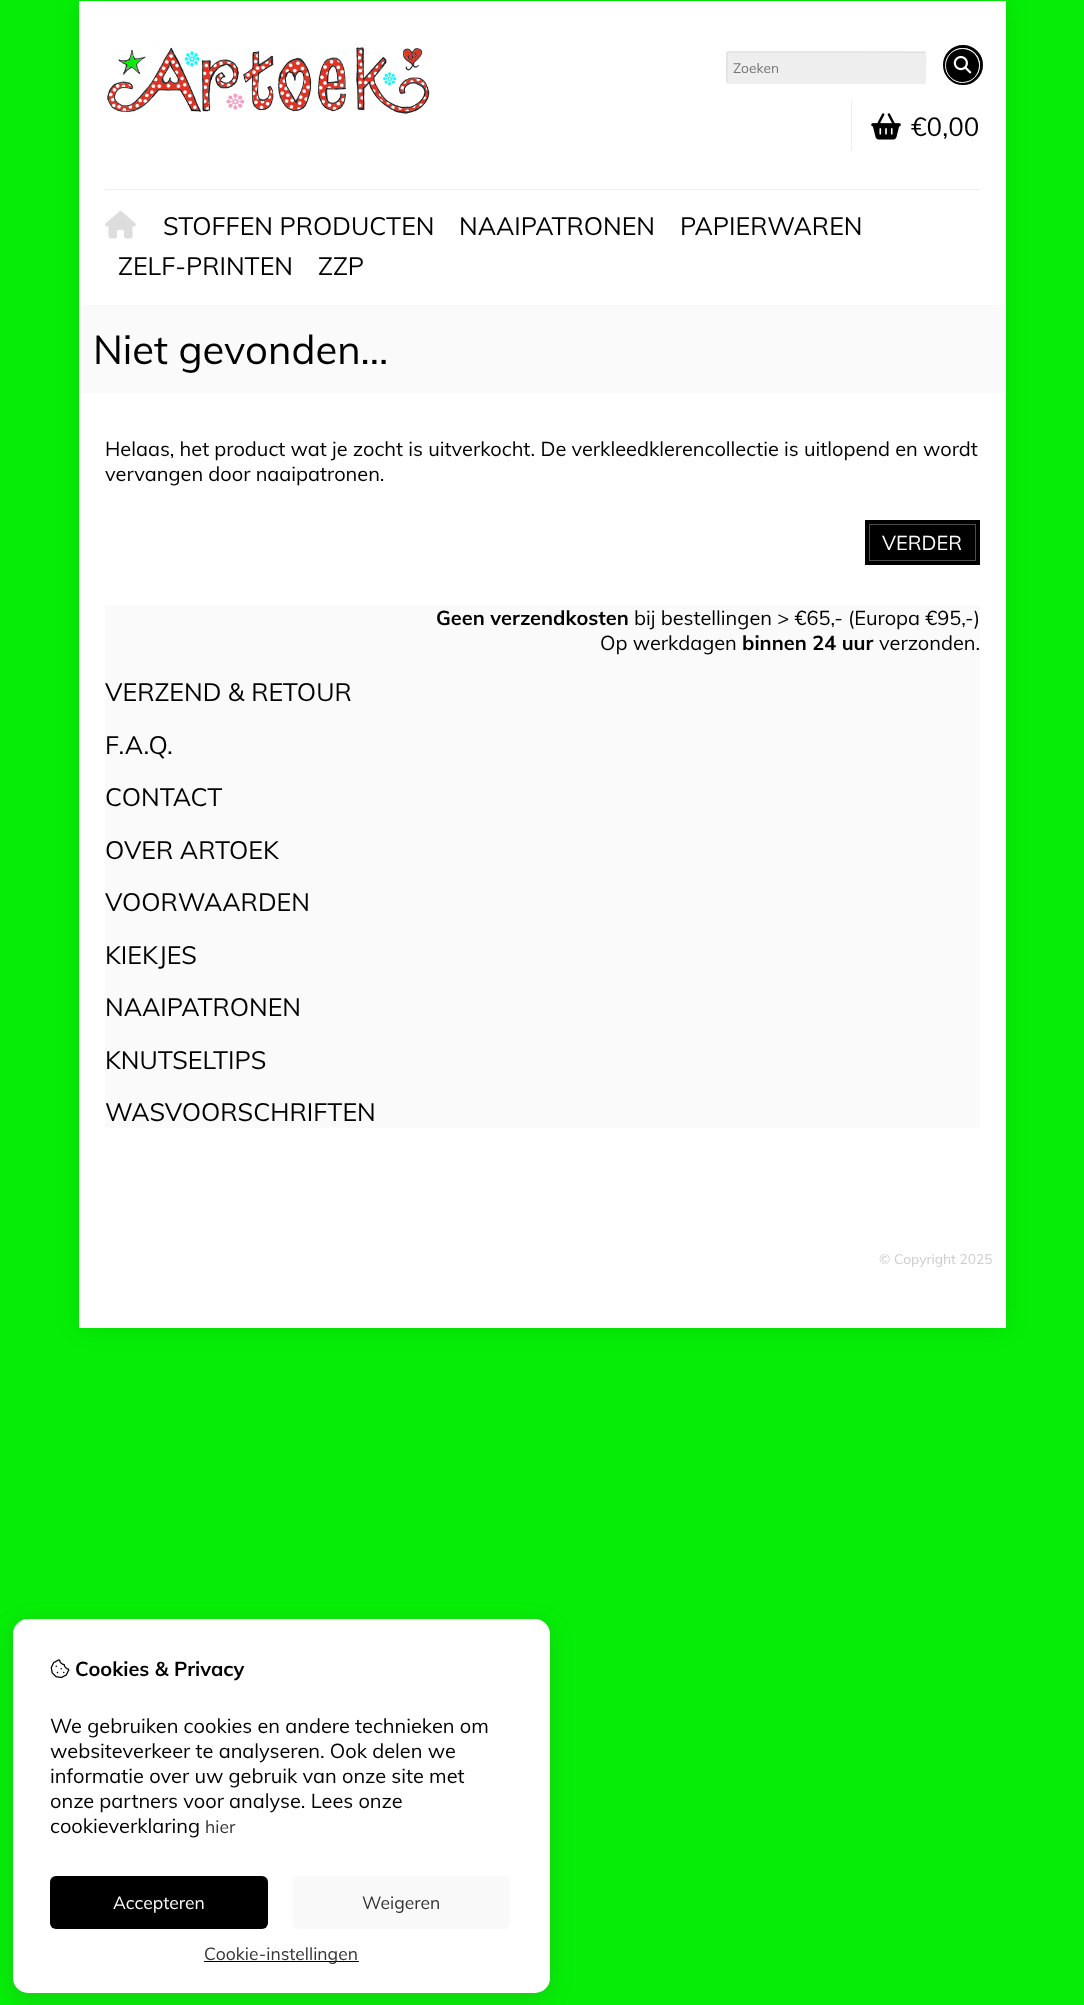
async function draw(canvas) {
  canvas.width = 1084
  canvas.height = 2005
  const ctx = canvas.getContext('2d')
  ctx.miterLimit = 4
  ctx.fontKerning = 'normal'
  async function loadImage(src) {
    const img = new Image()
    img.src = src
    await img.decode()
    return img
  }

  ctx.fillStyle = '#06ee07'
  ctx.fillRect(0, 0, 1084, 2005)
  ctx.fillStyle = '#0000001a'
  ctx.filter = 'blur(12.5px)'
  ctx.beginPath()
  ctx.rect(79, 1, 927, 1327)
  ctx.fill()
  ctx.filter = 'none'
  ctx.fillStyle = '#fff'
  ctx.fillRect(79, 1, 927, 1327)
  ctx.drawImage(await loadImage('image0.png'), 107, 46, 323, 68)
  ctx.fillStyle = '#eee'
  ctx.beginPath()
  ctx.roundRect(726, 51, 200, 33, 2.5)
  ctx.fill()
  ctx.beginPath()
  ctx.moveTo(925, 52.5)
  ctx.bezierCurveTo(926.5, 54, 925.5, 69, 925.5, 72)
  ctx.lineTo(925.5, 76.5)
  ctx.bezierCurveTo(925.5, 77.5, 926.5, 83, 924, 83)
  ctx.lineTo(794, 83)
  ctx.lineTo(727.5, 82.5)
  ctx.strokeStyle = '#eee'
  ctx.lineWidth = 1.2
  ctx.stroke()
  ctx.beginPath()
  ctx.moveTo(727.5, 82.5)
  ctx.bezierCurveTo(726, 81, 727, 66, 727, 63)
  ctx.lineTo(727, 58.5)
  ctx.bezierCurveTo(727, 57.5, 726, 52, 729, 52)
  ctx.lineTo(859, 52)
  ctx.lineTo(925, 52.5)
  ctx.strokeStyle = '#ddd'
  ctx.stroke()
  ctx.font = '13.75px Muli'
  ctx.fillStyle = '#757575'
  ctx.fillText('Zoeken', 733, 73)
  ctx.beginPath()
  ctx.arc(963, 65, 18.5, 0, 2 * Math.PI)
  ctx.strokeStyle = '#000'
  ctx.lineWidth = 3
  ctx.stroke()
  ctx.fillStyle = '#000'
  ctx.beginPath()
  ctx.arc(962.5, 65.5, 17, 0, 2 * Math.PI)
  ctx.fill()
  ctx.strokeStyle = '#fff'
  ctx.lineWidth = 1
  ctx.stroke()
  ctx.drawImage(await loadImage('image1.png'), 953, 55, 19, 19)
  ctx.fillStyle = '#eee'
  ctx.fillRect(851, 101, 1, 50)
  ctx.drawImage(await loadImage('image2.png'), 871, 113, 30, 27)
  ctx.font = '26px Muli'
  ctx.fillStyle = '#000'
  ctx.fillText('€0,00', 911, 136)
  ctx.fillStyle = '#eee'
  ctx.fillRect(105, 189, 875, 1)
  ctx.drawImage(await loadImage('image3.png'), 105, 211, 31, 28)
  ctx.font = '25px Muli'
  ctx.fillStyle = '#000'
  ctx.fillText('STOFFEN PRODUCTEN', 163, 235)
  ctx.fillText('NAAIPATRONEN', 459, 235)
  ctx.fillText('PAPIERWAREN', 680, 235)
  ctx.fillText('ZELF-PRINTEN', 118, 275)
  ctx.fillText('ZZP', 318, 275)
  ctx.fillStyle = '#fafafa'
  ctx.fillRect(80, 305, 925, 88)
  ctx.font = '40px Muli'
  ctx.fillStyle = '#000'
  ctx.fillText('Niet gevonden...', 93, 364)
  ctx.font = '20px Muli'
  ctx.fillText('Helaas, het product wat je zocht is uitverkocht. De verkleedklerencollectie is uitlopend en wordt', 105, 456)
  ctx.fillText('vervangen door naaipatronen.', 105, 481)
  ctx.fillRect(865, 520, 115, 45)
  ctx.strokeStyle = '#4d4d4d'
  ctx.strokeRect(869.5, 524.5, 106, 36)
  ctx.fillStyle = '#fff'
  ctx.fillText('VERDER', 882, 550)
  ctx.fillStyle = '#fafafa'
  ctx.fillRect(105, 605, 875, 523)
  ctx.font = 'bold 20px Muli'
  ctx.fillStyle = '#000'
  ctx.fillText('Geen verzendkosten', 436, 625)
  ctx.font = '20px Muli'
  ctx.fillText('bij bestellingen > €65,- (Europa €95,-)', 634, 625)
  ctx.fillText('Op werkdagen', 600, 650)
  ctx.font = 'bold 20px Muli'
  ctx.fillText('binnen 24 uur', 742, 650)
  ctx.font = '20px Muli'
  ctx.fillText('verzonden.', 879, 650)
  ctx.font = '25px Muli'
  ctx.fillText('VERZEND & RETOUR', 105, 701)
  ctx.fillText('F.A.Q.', 105, 754)
  ctx.fillText('CONTACT', 105, 806)
  ctx.fillText('OVER ARTOEK', 105, 859)
  ctx.fillText('VOORWAARDEN', 105, 911)
  ctx.fillText('KIEKJES', 105, 964)
  ctx.fillText('NAAIPATRONEN', 105, 1016)
  ctx.fillText('KNUTSELTIPS', 105, 1069)
  ctx.fillText('WASVOORSCHRIFTEN', 105, 1121)
  ctx.font = '13.75px Muli'
  ctx.fillStyle = '#ccc'
  ctx.fillText('© Copyright 2025', 879, 1264)
  ctx.fillStyle = '#4c4c4c33'
  ctx.filter = 'blur(10.5px)'
  ctx.beginPath()
  ctx.roundRect(13, 1624, 537, 374, 15)
  ctx.fill()
  ctx.filter = 'none'
  ctx.fillStyle = '#fff'
  ctx.beginPath()
  ctx.roundRect(13, 1619, 537, 374, 15)
  ctx.fill()
  ctx.drawImage(await loadImage('image4.png'), 50, 1659, 20, 20)
  ctx.font = 'bold 20px Muli'
  ctx.fillStyle = '#000'
  ctx.fillText('Cookies & Privacy', 75, 1676)
  ctx.font = '20px Muli'
  ctx.fillText('We gebruiken cookies en andere technieken om', 50, 1733)
  ctx.fillText('websiteverkeer te analyseren. Ook delen we', 50, 1758)
  ctx.fillText('informatie over uw gebruik van onze site met', 50, 1783)
  ctx.fillText('onze partners voor analyse. Lees onze', 50, 1808)
  ctx.fillText('cookieverklaring', 50, 1833)
  ctx.font = '17.5px Muli'
  ctx.fillStyle = '#333'
  ctx.fillText('hier', 205, 1833)
  ctx.fillStyle = '#000'
  ctx.beginPath()
  ctx.roundRect(50, 1876, 218, 53, 6)
  ctx.fill()
  ctx.fillStyle = '#fff'
  ctx.fillText('Accepteren', 113, 1909)
  ctx.fillStyle = '#f9f9f9'
  ctx.beginPath()
  ctx.roundRect(293, 1876, 217, 53, 6)
  ctx.fill()
  ctx.fillStyle = '#333'
  ctx.fillText('Weigeren', 362, 1909)
  ctx.fillStyle = '#000'
  ctx.fillRect(204, 1961, 155, 1)
  ctx.fillStyle = '#333'
  ctx.fillText('Cookie-instellingen', 204, 1960)
}

draw(document.querySelector('canvas'))
